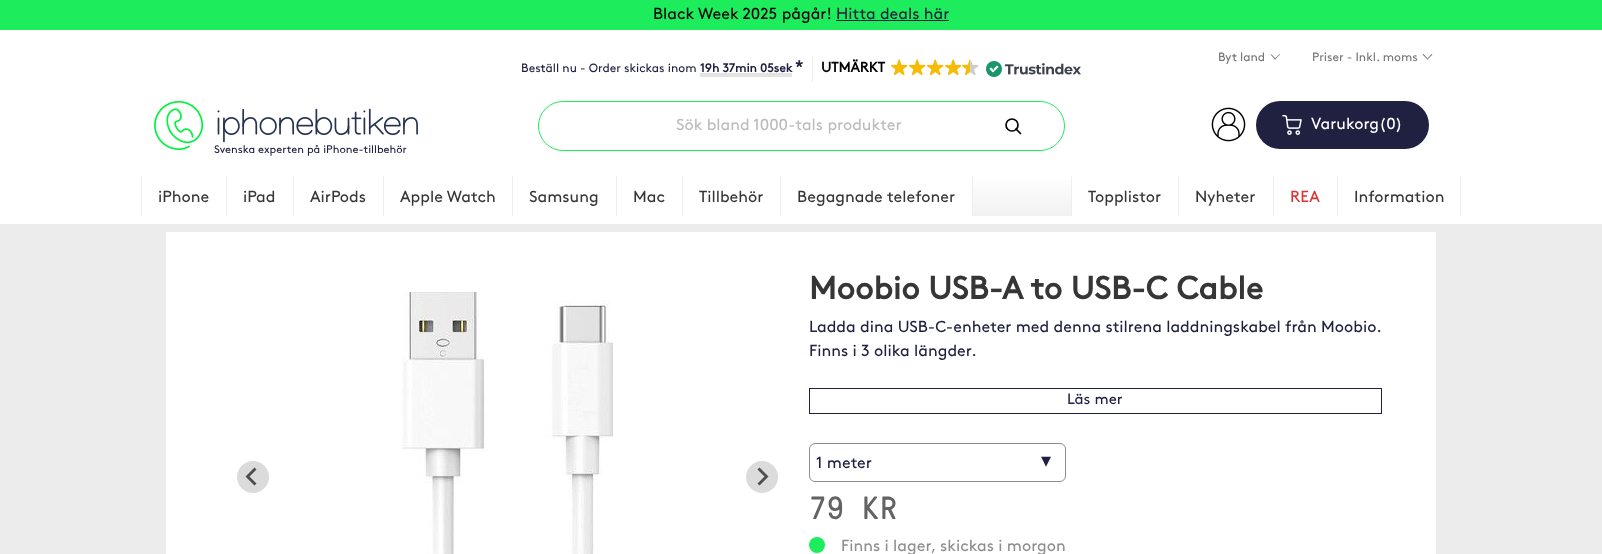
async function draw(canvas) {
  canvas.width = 1602
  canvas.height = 554
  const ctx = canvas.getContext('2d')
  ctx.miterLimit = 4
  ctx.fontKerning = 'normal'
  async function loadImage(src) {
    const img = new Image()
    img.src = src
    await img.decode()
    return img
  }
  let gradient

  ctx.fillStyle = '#ececec'
  ctx.fillRect(0, 0, 1602, 554)
  ctx.fillStyle = '#fff'
  ctx.fillRect(0, 30, 1602, 194)
  ctx.fillStyle = '#1ded5c'
  ctx.fillRect(0, 0, 1602, 30)
  ctx.font = '16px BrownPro'
  ctx.fillStyle = '#000'
  ctx.fillText('Black Week 2025 pågår!', 653, 19)
  ctx.fillStyle = '#202141'
  ctx.fillText('Hitta deals här', 836, 19)
  ctx.fillRect(836, 20, 113, 1)
  ctx.font = '12px BrownPro'
  ctx.fillText('Beställ nu - Order skickas inom', 521, 72)
  ctx.font = 'bold 12px BrownPro'
  ctx.fillText('19h 37min 05sek', 700, 72)
  ctx.fillStyle = '#e3e3e3'
  ctx.fillRect(700, 73, 92, 4)
  ctx.font = 'bold 16px BrownPro'
  ctx.fillStyle = '#202141'
  ctx.fillText('*', 795, 72)
  ctx.fillStyle = '#eee'
  ctx.fillRect(812, 56, 1, 26)
  ctx.font = 'bold 14px BrownPro'
  ctx.fillStyle = '#000'
  ctx.fillText('UTMÄRKT', 821, 72)
  ctx.drawImage(await loadImage('image0.png'), 891, 59, 17, 17)
  ctx.drawImage(await loadImage('image0.png'), 909, 59, 17, 17)
  ctx.drawImage(await loadImage('image0.png'), 927, 59, 17, 17)
  ctx.drawImage(await loadImage('image1.png'), 945, 59, 16, 17)
  ctx.drawImage(await loadImage('image2.png'), 962, 59, 17, 17)
  ctx.drawImage(await loadImage('image3.png'), 986, 61, 95, 16)
  ctx.font = '12px BrownPro'
  ctx.fillStyle = '#767676'
  ctx.fillText('Byt land', 1218, 61)
  ctx.beginPath()
  ctx.moveTo(1279.5, 54)
  ctx.lineTo(1280, 54.5)
  ctx.lineTo(1275, 59.5)
  ctx.lineTo(1274.5, 59)
  ctx.closePath()
  ctx.fill()
  ctx.beginPath()
  ctx.moveTo(1271, 54)
  ctx.lineTo(1276, 59)
  ctx.lineTo(1275, 59.5)
  ctx.lineTo(1270.5, 54.5)
  ctx.closePath()
  ctx.fill()
  ctx.fillText('Priser - Inkl. moms', 1312, 61)
  ctx.beginPath()
  ctx.moveTo(1431.5, 54)
  ctx.lineTo(1432.5, 54.5)
  ctx.lineTo(1427.5, 59.5)
  ctx.lineTo(1427, 59)
  ctx.closePath()
  ctx.fill()
  ctx.beginPath()
  ctx.moveTo(1423.5, 54)
  ctx.lineTo(1428, 59)
  ctx.lineTo(1427.5, 59.5)
  ctx.lineTo(1422.5, 54.5)
  ctx.closePath()
  ctx.fill()
  ctx.beginPath()
  ctx.roundRect(538.5, 101.5, 526, 49, 24.5)
  ctx.strokeStyle = '#1ded5c'
  ctx.stroke()
  ctx.font = '16px BrownPro'
  ctx.fillStyle = '#bcbcbc'
  ctx.fillText('Sök bland 1000-tals produkter', 676, 130)
  ctx.beginPath()
  ctx.arc(1012, 125, 6, 0, 2 * Math.PI)
  ctx.strokeStyle = '#000'
  ctx.lineWidth = 1.7
  ctx.stroke()
  ctx.beginPath()
  ctx.moveTo(1020.5, 133.5)
  ctx.lineTo(1016, 129)
  ctx.lineCap = 'round'
  ctx.lineJoin = 'round'
  ctx.stroke()
  ctx.drawImage(await loadImage('image4.png'), 1211, 107, 35, 35)
  ctx.fillStyle = '#202141'
  ctx.beginPath()
  ctx.roundRect(1256, 101, 173, 48, 24)
  ctx.fill()
  ctx.drawImage(await loadImage('image5.png'), 1282, 115, 20, 20)
  ctx.fillStyle = '#fff'
  ctx.fillText('Varukorg(0)', 1311, 129)
  ctx.drawImage(await loadImage('image6.png'), 154, 101, 264, 49)
  ctx.font = '11px BrownPro'
  ctx.fillStyle = '#202141'
  ctx.fillText('Svenska experten på iPhone-tillbehör', 214, 153)
  gradient = ctx.createLinearGradient(801, 172, 801, 216)
  gradient.addColorStop(0, '#fff')
  gradient.addColorStop(1, '#f2f2f2')
  ctx.fillStyle = gradient
  ctx.fillRect(973, 180, 98, 36)
  ctx.fillStyle = '#eee'
  ctx.fillRect(141, 176, 1, 40)
  ctx.font = '16px BrownPro'
  ctx.fillStyle = '#363636'
  ctx.fillText('iPhone', 158, 202)
  ctx.fillStyle = '#eee'
  ctx.fillRect(226, 176, 1, 40)
  ctx.fillStyle = '#363636'
  ctx.fillText('iPad', 243, 202)
  ctx.fillStyle = '#eee'
  ctx.fillRect(293, 176, 1, 40)
  ctx.fillStyle = '#363636'
  ctx.fillText('AirPods', 310, 202)
  ctx.fillStyle = '#eee'
  ctx.fillRect(383, 176, 1, 40)
  ctx.fillStyle = '#363636'
  ctx.fillText('Apple Watch', 400, 202)
  ctx.fillStyle = '#eee'
  ctx.fillRect(512, 176, 1, 40)
  ctx.fillStyle = '#363636'
  ctx.fillText('Samsung', 529, 202)
  ctx.fillStyle = '#eee'
  ctx.fillRect(616, 176, 1, 40)
  ctx.fillStyle = '#363636'
  ctx.fillText('Mac', 633, 202)
  ctx.fillStyle = '#eee'
  ctx.fillRect(682, 176, 1, 40)
  ctx.fillStyle = '#363636'
  ctx.fillText('Tillbehör', 699, 202)
  ctx.fillStyle = '#eee'
  ctx.fillRect(780, 176, 1, 40)
  ctx.fillStyle = '#363636'
  ctx.fillText('Begagnade telefoner', 797, 202)
  ctx.fillStyle = '#eee'
  ctx.fillRect(972, 176, 1, 40)
  ctx.fillRect(1071, 176, 1, 40)
  ctx.fillStyle = '#363636'
  ctx.fillText('Topplistor', 1088, 202)
  ctx.fillStyle = '#eee'
  ctx.fillRect(1178, 176, 1, 40)
  ctx.fillStyle = '#363636'
  ctx.fillText('Nyheter', 1195, 202)
  ctx.fillStyle = '#eee'
  ctx.fillRect(1273, 176, 1, 40)
  ctx.fillStyle = '#db3232'
  ctx.fillText('REA', 1290, 202)
  ctx.fillStyle = '#eee'
  ctx.fillRect(1337, 176, 1, 40)
  ctx.fillStyle = '#363636'
  ctx.fillText('Information', 1354, 202)
  ctx.fillStyle = '#eee'
  ctx.fillRect(1460, 176, 1, 40)
  ctx.fillStyle = '#fff'
  ctx.fillRect(166, 232, 1270, 322)
  ctx.drawImage(await loadImage('image7.png'), 402, 292, 211, 262)
  ctx.fillStyle = '#dbdbdb'
  ctx.beginPath()
  ctx.arc(253, 477, 16, 0, 2 * Math.PI)
  ctx.fill()
  ctx.fillStyle = '#4d4d4d'
  ctx.beginPath()
  ctx.moveTo(254.5, 467.5)
  ctx.lineTo(256.5, 469.5)
  ctx.lineTo(249.5, 476.5)
  ctx.lineTo(256.5, 483.5)
  ctx.lineTo(254.5, 485.5)
  ctx.lineTo(245.5, 476.5)
  ctx.closePath()
  ctx.fill()
  ctx.fillStyle = '#dbdbdb'
  ctx.beginPath()
  ctx.arc(762, 477, 16, 0, 2 * Math.PI)
  ctx.fill()
  ctx.fillStyle = '#4d4d4d'
  ctx.beginPath()
  ctx.moveTo(759.5, 467.5)
  ctx.lineTo(757.5, 469.5)
  ctx.lineTo(764.5, 476.5)
  ctx.lineTo(757.5, 483.5)
  ctx.lineTo(759.5, 485.5)
  ctx.lineTo(768.5, 476.5)
  ctx.closePath()
  ctx.fill()
  ctx.font = 'bold 32px BrownPro'
  ctx.fillStyle = '#363636'
  ctx.fillText('Moobio USB-A to USB-C Cable', 809, 299)
  ctx.font = '16px BrownPro'
  ctx.fillStyle = '#202141'
  ctx.fillText('Ladda dina USB-C-enheter med denna stilrena laddningskabel från Moobio.', 809, 332)
  ctx.fillText('Finns i 3 olika längder.', 809, 356)
  ctx.strokeStyle = '#202141'
  ctx.lineWidth = 1
  ctx.lineJoin = 'miter'
  ctx.strokeRect(809.5, 388.5, 572, 25)
  ctx.font = '15px BrownPro'
  ctx.fillText('Läs mer', 1067, 404)
  ctx.beginPath()
  ctx.roundRect(809.5, 443.5, 256, 38, 5.5)
  ctx.strokeStyle = '#8e8e8e'
  ctx.stroke()
  ctx.font = '16px BrownPro'
  ctx.fillText('1 meter', 816, 468)
  ctx.font = '20px DejaVu Sans'
  ctx.fillText('▾', 1041, 467)
  ctx.font = '32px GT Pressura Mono'
  ctx.fillStyle = '#636363'
  ctx.fillText('79 KR', 809, 519)
  ctx.fillStyle = '#1ded5c'
  ctx.beginPath()
  ctx.arc(817, 545, 8, 0, 2 * Math.PI)
  ctx.fill()
  ctx.font = '16px BrownPro'
  ctx.fillStyle = '#8e8e8e'
  ctx.fillText('Finns i lager, skickas i morgon', 841, 551)
}

draw(document.querySelector('canvas'))
